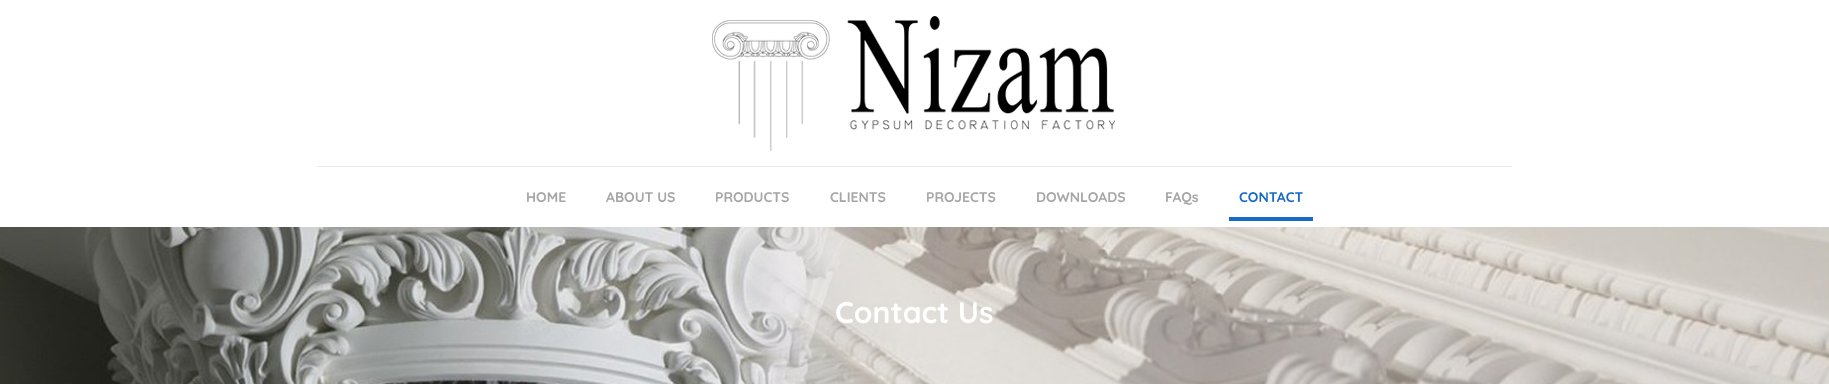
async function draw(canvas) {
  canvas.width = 1829
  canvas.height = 384
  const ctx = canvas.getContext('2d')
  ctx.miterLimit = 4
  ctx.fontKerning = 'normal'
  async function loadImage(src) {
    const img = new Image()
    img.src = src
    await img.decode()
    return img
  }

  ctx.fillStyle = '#fff'
  ctx.fillRect(0, 0, 1829, 384)
  ctx.drawImage(await loadImage('image0.png'), 0, 227, 1829, 157)
  ctx.fillStyle = '#ebebeb'
  ctx.fillRect(317, 166, 1195, 1)
  ctx.drawImage(await loadImage('image1.png'), 712, 16, 403, 135)
  ctx.font = 'bold 14px Quicksand'
  ctx.fillStyle = '#a6a6a6'
  ctx.fillText('HOME', 526, 202)
  ctx.fillText('ABOUT US', 606, 202)
  ctx.fillText('PRODUCTS', 715, 202)
  ctx.fillText('CLIENTS', 830, 202)
  ctx.fillText('PROJECTS', 926, 202)
  ctx.fillText('DOWNLOADS', 1036, 202)
  ctx.fillText('FAQs', 1165, 202)
  ctx.fillStyle = '#1769c6'
  ctx.fillText('CONTACT', 1239, 202)
  ctx.fillRect(1229, 217, 84, 4)
  ctx.font = 'bold 30px Quicksand'
  ctx.fillStyle = '#fff'
  ctx.fillText('Contact Us', 835, 323)
}

draw(document.querySelector('canvas'))
